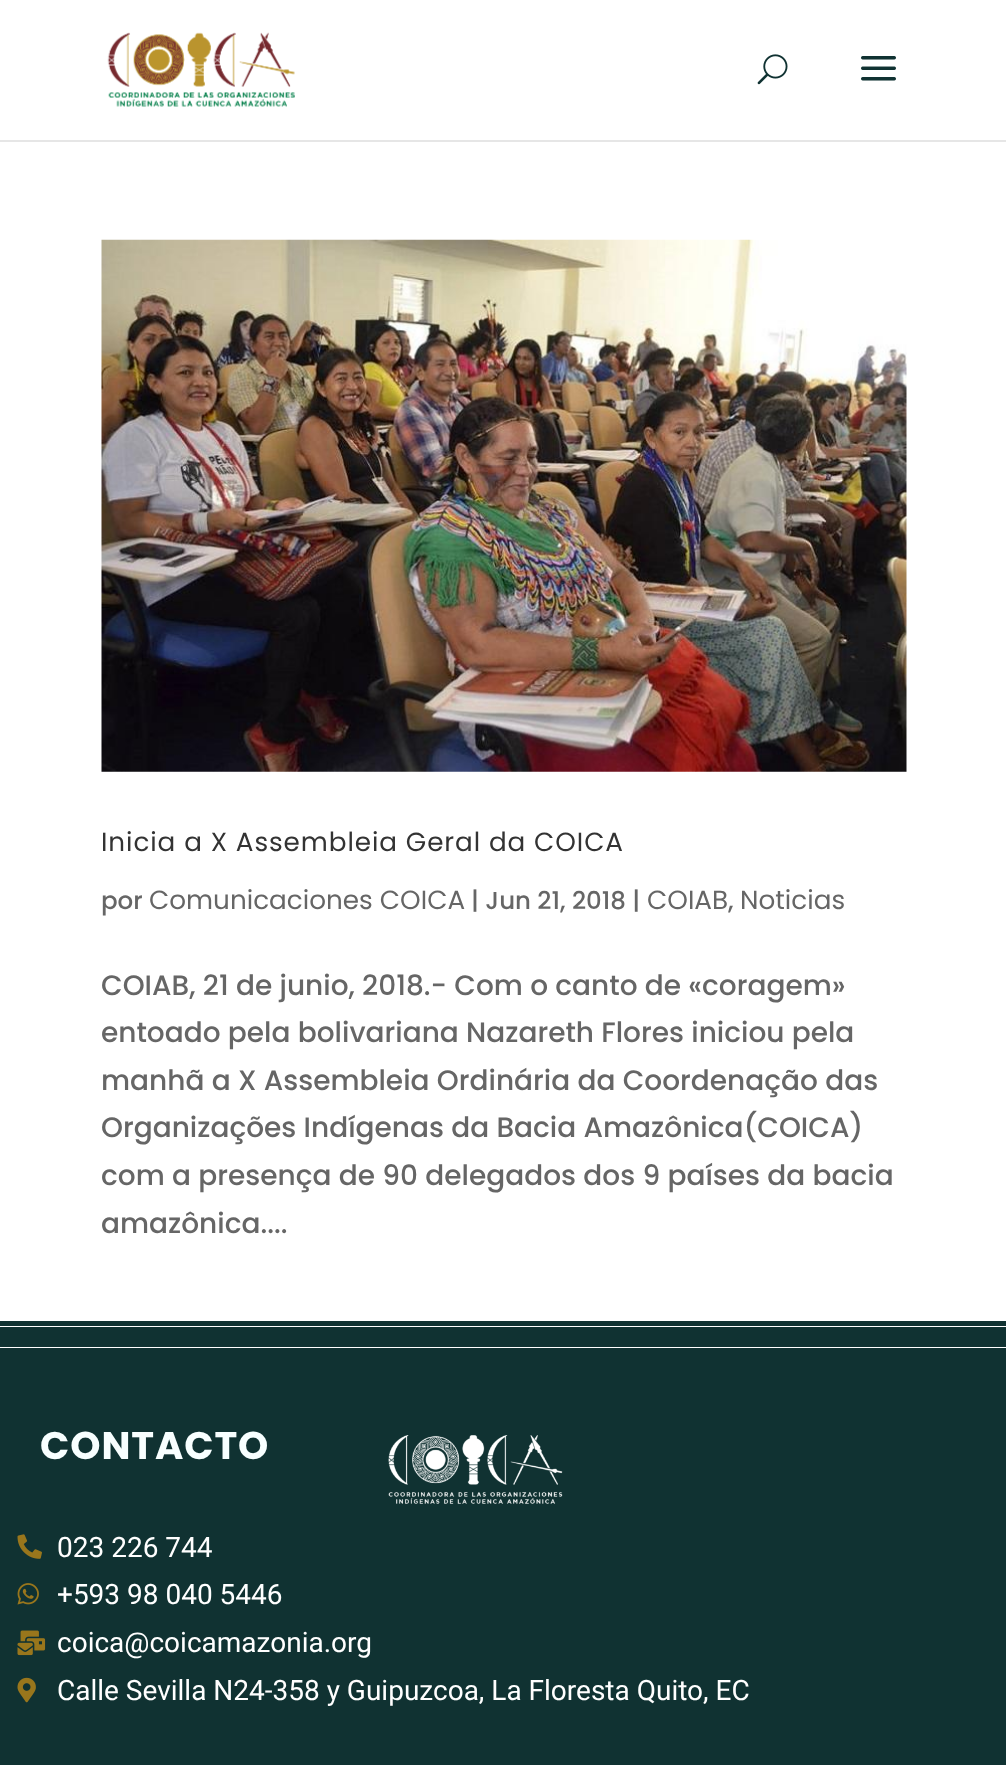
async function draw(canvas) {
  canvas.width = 1006
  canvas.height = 1765
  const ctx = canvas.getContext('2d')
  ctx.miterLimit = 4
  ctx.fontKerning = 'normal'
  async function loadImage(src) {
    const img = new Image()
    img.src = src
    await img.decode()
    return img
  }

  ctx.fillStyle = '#fff'
  ctx.fillRect(0, 0, 1006, 1765)
  ctx.fillStyle = '#e6e6e6'
  ctx.fillRect(0, 140, 1006, 2)
  ctx.drawImage(await loadImage('image0.png'), 107, 32, 188, 75)
  ctx.drawImage(await loadImage('image1.png'), 757, 54, 31, 31)
  ctx.drawImage(await loadImage('image2.png'), 861, 56, 35, 25)
  ctx.drawImage(await loadImage('image3.png'), 101, 239, 806, 533)
  ctx.letterSpacing = '0.9px'
  ctx.font = '26.25px Poppins'
  ctx.fillStyle = '#333'
  ctx.fillText('Inicia a X Assembleia Geral da COICA', 101, 851)
  ctx.letterSpacing = '0px'
  ctx.font = '500 24.5px Poppins'
  ctx.fillStyle = '#666'
  ctx.fillText('por', 101, 909)
  ctx.font = '26.25px Poppins'
  ctx.fillText('Comunicaciones COICA', 149, 909)
  ctx.font = '500 24.5px Poppins'
  ctx.fillText('| Jun 21, 2018 |', 471, 909)
  ctx.font = '26.25px Poppins'
  ctx.fillText('COIAB', 647, 909)
  ctx.font = '500 24.5px Poppins'
  ctx.fillText(',', 728, 909)
  ctx.font = '26.25px Poppins'
  ctx.fillText('Noticias', 740, 909)
  ctx.font = '500 28px Poppins'
  ctx.fillText('COIAB, 21 de junio, 2018.- Com o canto de «coragem»', 101, 995)
  ctx.fillText('entoado pela bolivariana Nazareth Flores iniciou pela', 101, 1042)
  ctx.fillText('manhã a X Assembleia Ordinária da Coordenação das', 101, 1090)
  ctx.fillText('Organizações Indígenas da Bacia Amazônica(COICA)', 101, 1137)
  ctx.fillText('com a presença de 90 delegados dos 9 países da bacia', 101, 1185)
  ctx.fillText('amazônica....', 101, 1233)
  ctx.fillStyle = '#103232'
  ctx.fillRect(0, 1321, 1006, 5)
  ctx.fillRect(0, 1327, 1006, 20)
  ctx.fillRect(0, 1348, 1006, 417)
  ctx.letterSpacing = '0.9px'
  ctx.font = 'bold 38.5px Poppins'
  ctx.fillStyle = '#f8ffff'
  ctx.fillText('CONTACTO', 40, 1459)
  ctx.drawImage(await loadImage('image4.png'), 17, 1534, 25, 25)
  ctx.letterSpacing = '0px'
  ctx.font = '28px Roboto'
  ctx.fillStyle = '#fff'
  ctx.fillText('023 226 744', 57, 1557)
  ctx.drawImage(await loadImage('image5.png'), 17, 1583, 22, 22)
  ctx.fillText('+593 98 040 5446', 57, 1604)
  ctx.drawImage(await loadImage('image6.png'), 17, 1630, 29, 26)
  ctx.fillText('coica@coicamazonia.org', 57, 1652)
  ctx.drawImage(await loadImage('image7.png'), 17, 1677, 19, 26)
  ctx.fillText('Calle Sevilla N24-358 y Guipuzcoa, La Floresta Quito, EC', 57, 1700)
  ctx.drawImage(await loadImage('image8.png'), 388, 1435, 175, 69)
}

draw(document.querySelector('canvas'))
